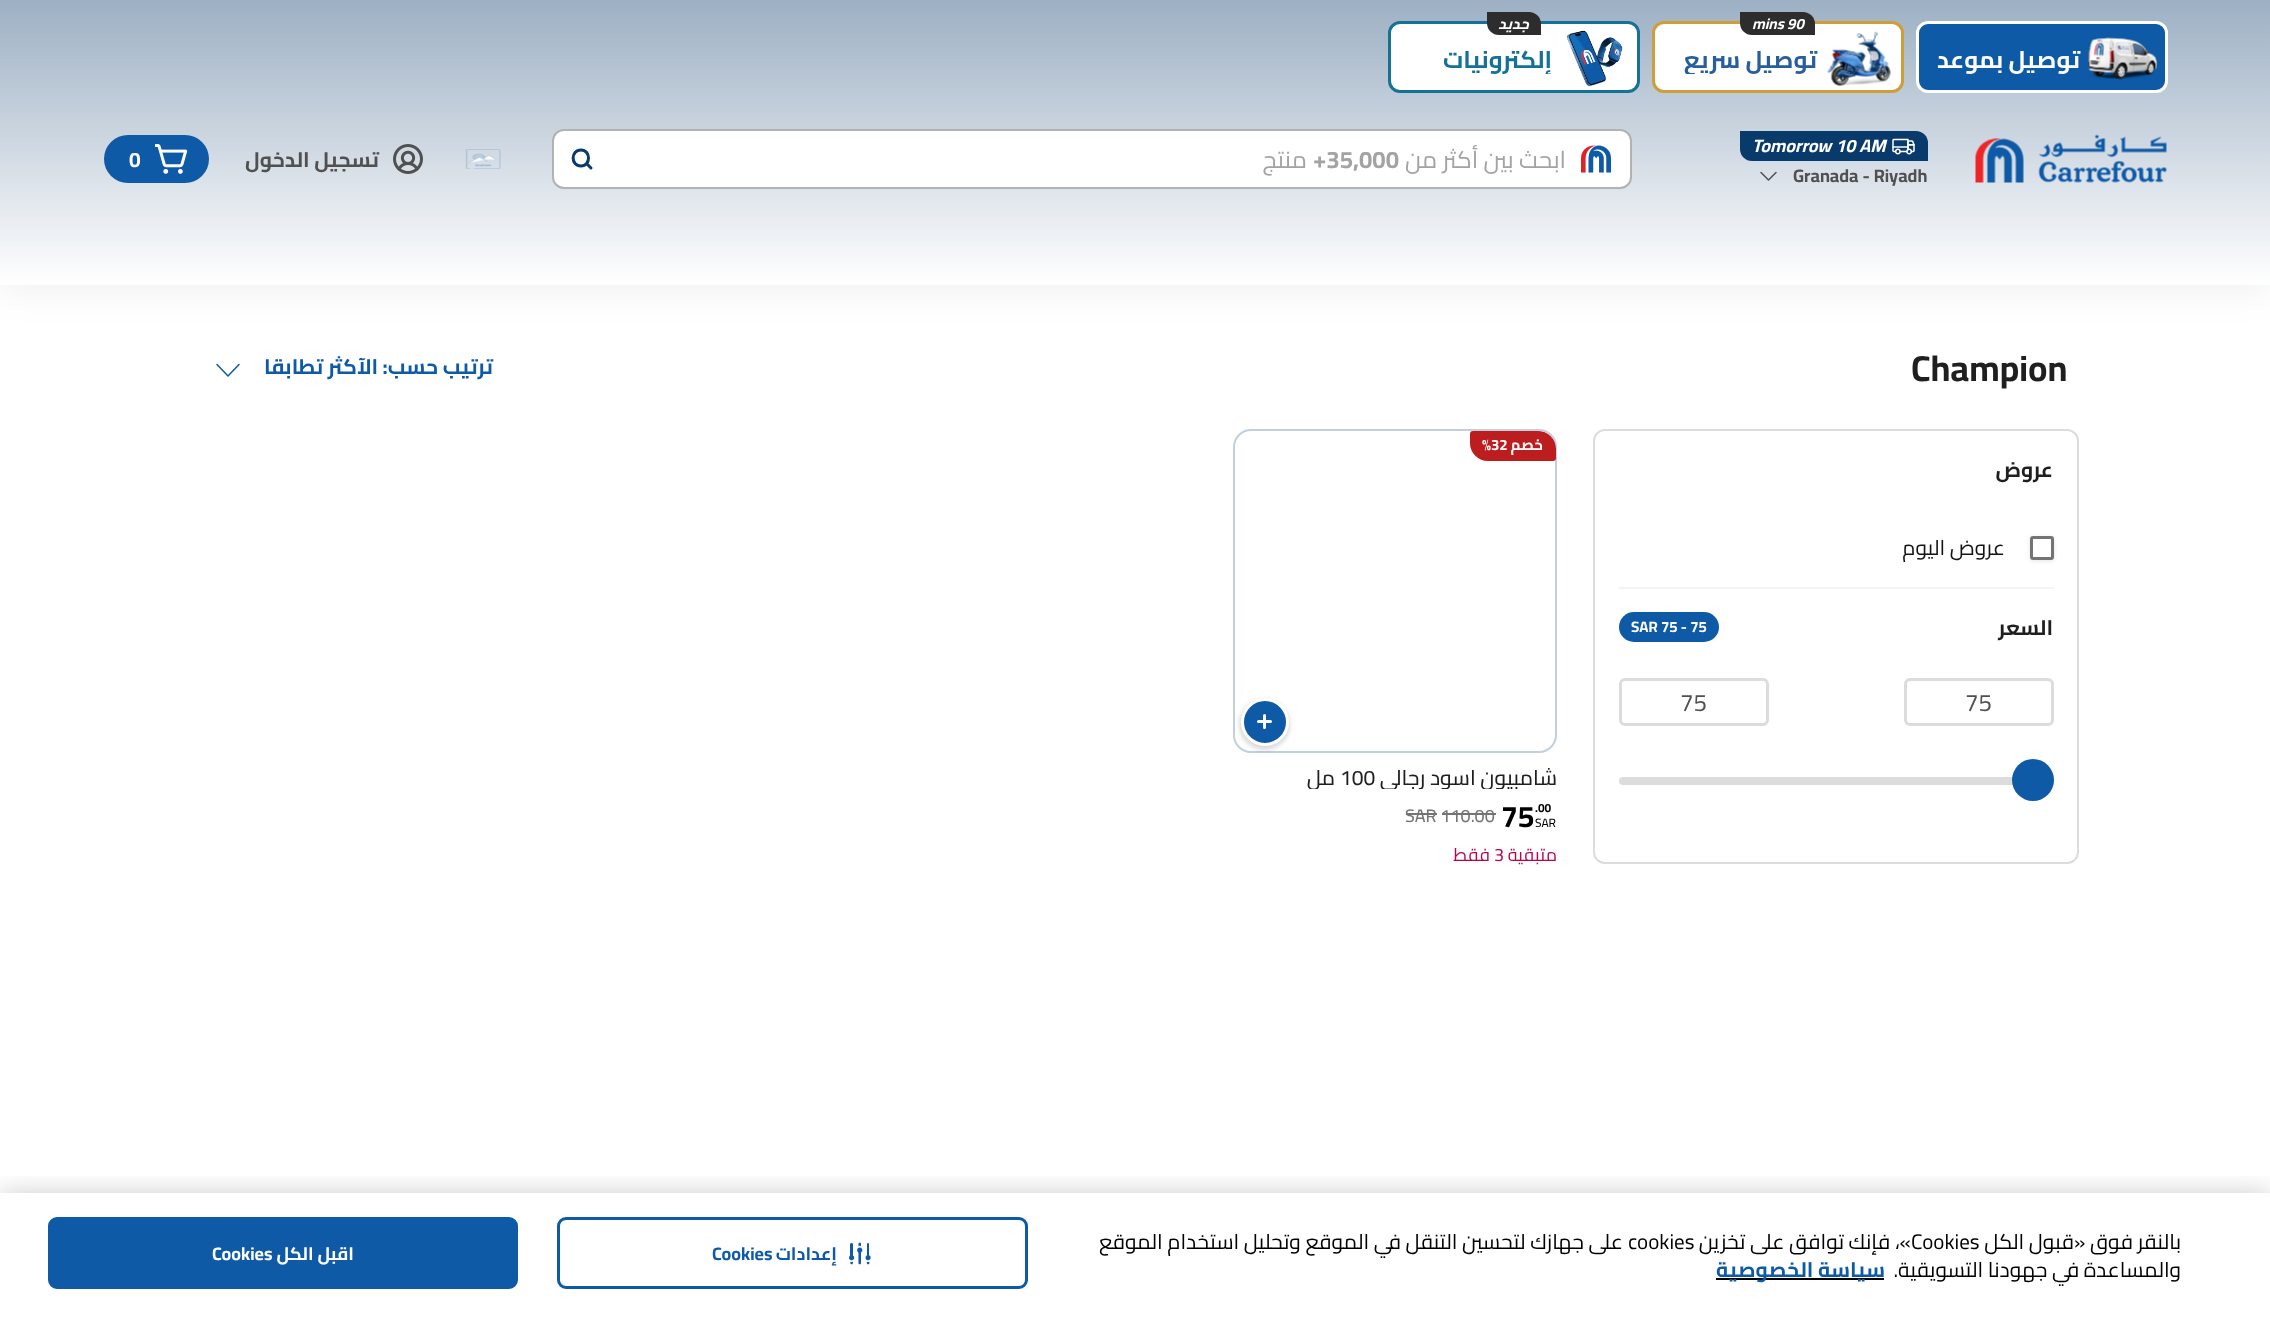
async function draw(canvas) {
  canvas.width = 2270
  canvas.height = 1321
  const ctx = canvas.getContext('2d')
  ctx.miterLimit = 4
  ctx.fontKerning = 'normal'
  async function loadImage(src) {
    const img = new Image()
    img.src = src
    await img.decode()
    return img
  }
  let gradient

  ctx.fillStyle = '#fff'
  ctx.fillRect(0, 0, 2270, 1321)
  ctx.fillStyle = '#0000000f'
  ctx.filter = 'blur(18px)'
  ctx.beginPath()
  ctx.rect(0, 6, 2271, 285)
  ctx.fill()
  ctx.filter = 'none'
  gradient = ctx.createLinearGradient(1136, 0, 1136, 285)
  gradient.addColorStop(0, '#9db0c4')
  gradient.addColorStop(1, '#fff')
  ctx.fillStyle = gradient
  ctx.fillRect(0, 0, 2270, 285)
  ctx.fillStyle = '#0e5aa7'
  ctx.beginPath()
  ctx.roundRect(1917.5, 22.5, 249, 69, 10.5)
  ctx.fill()
  ctx.strokeStyle = '#fff'
  ctx.lineWidth = 3
  ctx.stroke()
  ctx.drawImage(await loadImage('image0.png'), 2088, 37, 70, 43)
  ctx.direction = 'rtl'
  ctx.font = 'bold 24px Cairo'
  ctx.fillStyle = '#fff'
  ctx.fillText('توصيل بموعد', 2080, 68)
  ctx.beginPath()
  ctx.roundRect(1653.5, 22.5, 249, 69, 10.5)
  ctx.fill()
  ctx.strokeStyle = '#cf9e36'
  ctx.stroke()
  ctx.fillStyle = '#2d2d2d'
  ctx.beginPath()
  ctx.roundRect(1740, 12, 75, 23, [0, 12, 0, 12])
  ctx.fill()
  ctx.direction = 'ltr'
  ctx.font = 'italic bold 15px Cairo'
  ctx.fillStyle = '#fff'
  ctx.fillText('mins 90', 1752, 29)
  ctx.drawImage(await loadImage('image1.png'), 1827, 31, 64, 55)
  ctx.save()
  ctx.beginPath()
  ctx.rect(1683, 44, 140, 30)
  ctx.clip()
  ctx.direction = 'rtl'
  ctx.font = 'bold 24px Cairo'
  ctx.fillStyle = '#285e9c'
  ctx.fillText('توصيل سريع', 1817, 68)
  ctx.restore()
  ctx.beginPath()
  ctx.roundRect(1389.5, 22.5, 249, 69, 10.5)
  ctx.fill()
  ctx.strokeStyle = '#157296'
  ctx.stroke()
  ctx.fillStyle = '#2d2d2d'
  ctx.beginPath()
  ctx.roundRect(1487, 12, 54, 23, [0, 12, 0, 12])
  ctx.fill()
  ctx.direction = 'rtl'
  ctx.fillStyle = '#fff'
  ctx.fillText('جديد', 1529, 29)
  ctx.drawImage(await loadImage('image2.png'), 1566, 30, 57, 57)
  ctx.save()
  ctx.beginPath()
  ctx.rect(1443, 44, 116, 30)
  ctx.clip()
  ctx.font = 'bold 24px Cairo'
  ctx.fillStyle = '#157296'
  ctx.fillText('إلكترونيات', 1552, 68)
  ctx.restore()
  ctx.drawImage(await loadImage('image3.png'), 1975, 134, 192, 49)
  ctx.fillStyle = '#093a6c'
  ctx.beginPath()
  ctx.roundRect(1740, 131, 188, 30, [0, 12, 0, 12])
  ctx.fill()
  ctx.drawImage(await loadImage('image4.png'), 1892, 138, 23, 17)
  ctx.direction = 'ltr'
  ctx.font = 'italic bold 18px Cairo'
  ctx.fillStyle = '#fff'
  ctx.fillText('Tomorrow 10 AM', 1752, 152)
  ctx.font = 'bold 18px Cairo'
  ctx.fillStyle = '#505050'
  ctx.fillText('Granada - Riyadh', 1793, 182)
  ctx.beginPath()
  ctx.moveTo(1776, 172.5)
  ctx.lineTo(1768.5, 180)
  ctx.lineTo(1761, 172.5)
  ctx.strokeStyle = '#505050'
  ctx.lineWidth = 1.5
  ctx.lineCap = 'round'
  ctx.lineJoin = 'round'
  ctx.stroke()
  ctx.fillStyle = '#fff'
  ctx.beginPath()
  ctx.roundRect(553, 130, 1078, 58, 11)
  ctx.fill()
  ctx.strokeStyle = '#b2b2b2'
  ctx.lineWidth = 2
  ctx.lineJoin = 'miter'
  ctx.stroke()
  ctx.drawImage(await loadImage('image5.png'), 1581, 145, 30, 28)
  ctx.direction = 'rtl'
  ctx.font = '24px Cairo'
  ctx.fillStyle = '#a3a3a3'
  ctx.fillText('ابحث بين أكثر من', 1566, 168)
  ctx.direction = 'ltr'
  ctx.font = 'bold 24px Cairo'
  ctx.fillText('+35,000', 1313, 168)
  ctx.direction = 'rtl'
  ctx.font = '24px Cairo'
  ctx.fillText('منتج', 1307, 168)
  ctx.beginPath()
  ctx.moveTo(581, 166)
  ctx.bezierCurveTo(591, 166, 591, 150, 581, 150)
  ctx.bezierCurveTo(570.5, 150, 570.5, 166, 581, 166)
  ctx.closePath()
  ctx.moveTo(586.5, 163.5)
  ctx.lineTo(591, 168)
  ctx.strokeStyle = '#093a6c'
  ctx.lineWidth = 3
  ctx.lineJoin = 'round'
  ctx.stroke()
  ctx.drawImage(await loadImage('image6.png'), 465, 149, 36, 20)
  ctx.drawImage(await loadImage('image7.png'), 393, 144, 30, 30)
  ctx.font = 'bold 21px Cairo'
  ctx.fillStyle = '#505050'
  ctx.fillText('تسجيل الدخول', 379, 167)
  ctx.fillStyle = '#0e5aa7'
  ctx.beginPath()
  ctx.roundRect(104, 135, 105, 48, 24)
  ctx.fill()
  ctx.drawImage(await loadImage('image8.png'), 155, 144, 33, 30)
  ctx.direction = 'ltr'
  ctx.fillStyle = '#fff'
  ctx.fillText('0', 129, 167)
  ctx.font = 'bold 36px Cairo'
  ctx.fillStyle = '#1f1f1f'
  ctx.fillText('Champion', 1911, 381)
  ctx.direction = 'rtl'
  ctx.font = 'bold 21px Cairo'
  ctx.fillStyle = '#0e5aa7'
  ctx.fillText('ترتيب حسب: الآكثر تطابقا', 493, 374)
  ctx.beginPath()
  ctx.moveTo(239, 364.5)
  ctx.lineTo(228, 376)
  ctx.lineTo(217, 364.5)
  ctx.strokeStyle = '#0e5aa7'
  ctx.lineWidth = 1.5
  ctx.stroke()
  ctx.beginPath()
  ctx.roundRect(1594, 430, 484, 433, 11)
  ctx.strokeStyle = '#dcdcdc'
  ctx.lineWidth = 2
  ctx.lineJoin = 'miter'
  ctx.stroke()
  ctx.fillStyle = '#1f1f1f'
  ctx.fillText('عروض', 2053, 477)
  ctx.save()
  ctx.beginPath()
  ctx.moveTo(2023, 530)
  ctx.lineTo(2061, 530)
  ctx.lineTo(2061, 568)
  ctx.lineTo(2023, 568)
  ctx.closePath()
  ctx.moveTo(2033, 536)
  ctx.lineTo(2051, 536)
  ctx.bezierCurveTo(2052.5, 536, 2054, 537.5, 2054, 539)
  ctx.lineTo(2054, 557)
  ctx.bezierCurveTo(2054, 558.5, 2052.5, 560, 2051, 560)
  ctx.lineTo(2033, 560)
  ctx.bezierCurveTo(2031.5, 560, 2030, 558.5, 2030, 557)
  ctx.lineTo(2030, 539)
  ctx.bezierCurveTo(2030, 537.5, 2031.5, 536, 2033, 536)
  ctx.closePath()
  ctx.clip('evenodd')
  ctx.fillStyle = '#0000001a'
  ctx.filter = 'blur(2px)'
  ctx.beginPath()
  ctx.roundRect(2030, 537, 24, 24, 3)
  ctx.fill()
  ctx.filter = 'none'
  ctx.restore()
  ctx.beginPath()
  ctx.roundRect(2031.5, 537.5, 21, 21, 1.5)
  ctx.strokeStyle = '#747474'
  ctx.lineWidth = 3
  ctx.stroke()
  ctx.font = '21px Cairo'
  ctx.fillStyle = '#141414'
  ctx.fillText('عروض اليوم', 2005, 555)
  ctx.fillStyle = '#f4f4f4'
  ctx.fillRect(1619, 587, 435, 2)
  ctx.font = 'bold 21px Cairo'
  ctx.fillStyle = '#1f1f1f'
  ctx.fillText('السعر', 2053, 635)
  ctx.fillStyle = '#0e5aa7'
  ctx.beginPath()
  ctx.roundRect(1619, 612, 100, 30, 15)
  ctx.fill()
  ctx.direction = 'ltr'
  ctx.font = 'bold 15px Cairo'
  ctx.fillStyle = '#fff'
  ctx.fillText('SAR 75 - 75', 1631, 632)
  ctx.beginPath()
  ctx.roundRect(1905.5, 679.5, 147, 45, 4.5)
  ctx.strokeStyle = '#dcdcdc'
  ctx.stroke()
  ctx.font = '24px Cairo'
  ctx.fillStyle = '#505050'
  ctx.fillText('75', 1965, 711)
  ctx.beginPath()
  ctx.roundRect(1620.5, 679.5, 147, 45, 4.5)
  ctx.stroke()
  ctx.fillText('75', 1680, 711)
  ctx.fillStyle = '#dcdcdc'
  ctx.beginPath()
  ctx.roundRect(1619, 777, 435, 8, 4)
  ctx.fill()
  ctx.fillStyle = '#0e5aa7'
  ctx.beginPath()
  ctx.arc(2033, 780, 21, 0, 2 * Math.PI)
  ctx.fill()
  ctx.beginPath()
  ctx.roundRect(1234, 430, 322, 322, 17)
  ctx.strokeStyle = '#c1cfde'
  ctx.lineWidth = 2
  ctx.stroke()
  ctx.save()
  ctx.beginPath()
  ctx.roundRect(1235, 431, 321, 321, 17)
  ctx.clip()
  ctx.fillStyle = '#bc1e20'
  ctx.beginPath()
  ctx.roundRect(1470, 431, 86, 30, [3, 18, 3, 18])
  ctx.fill()
  ctx.restore()
  ctx.direction = 'rtl'
  ctx.font = 'bold 15px Cairo'
  ctx.fillStyle = '#fff'
  ctx.fillText('خصم', 1543, 450)
  ctx.direction = 'ltr'
  ctx.fillText('%32', 1482, 450)
  ctx.fillStyle = '#00000024'
  ctx.filter = 'blur(2px)'
  ctx.beginPath()
  ctx.roundRect(1239, 699, 51, 51, 25.5)
  ctx.fill()
  ctx.filter = 'none'
  ctx.fillStyle = '#0e5aa7'
  ctx.beginPath()
  ctx.arc(1265, 722, 22.5, 0, 2 * Math.PI)
  ctx.fill()
  ctx.strokeStyle = '#fff'
  ctx.lineWidth = 3
  ctx.stroke()
  ctx.beginPath()
  ctx.moveTo(1258.5, 721.5)
  ctx.lineTo(1270.5, 721.5)
  ctx.moveTo(1264.5, 715.5)
  ctx.lineTo(1264.5, 727.5)
  ctx.lineJoin = 'round'
  ctx.stroke()
  ctx.save()
  ctx.beginPath()
  ctx.rect(1235, 765, 322, 24)
  ctx.clip()
  ctx.direction = 'rtl'
  ctx.font = '500 21px Cairo'
  ctx.fillStyle = '#1f1f1f'
  ctx.fillText('شامبيون اسود رجالي', 1557, 785)
  ctx.restore()
  ctx.font = '500 21px Cairo'
  ctx.fillStyle = '#1f1f1f'
  ctx.fillText('100', 1340, 785)
  ctx.save()
  ctx.beginPath()
  ctx.rect(1235, 765, 322, 24)
  ctx.clip()
  ctx.direction = 'rtl'
  ctx.fillText('مل', 1335, 785)
  ctx.restore()
  ctx.font = 'bold 12px Cairo'
  ctx.fillStyle = '#000'
  ctx.fillText('.00', 1535, 812)
  ctx.font = '500 12px Cairo'
  ctx.fillText('SAR', 1535, 827)
  ctx.font = 'bold 30px Cairo'
  ctx.fillText('75', 1501, 827)
  ctx.font = '500 18px Cairo'
  ctx.fillStyle = '#747474'
  ctx.fillText('SAR 110.00', 1405, 822)
  ctx.fillRect(1406, 813, 31, 2)
  ctx.fillRect(1442, 813, 54, 2)
  ctx.direction = 'rtl'
  ctx.font = '18px Cairo'
  ctx.fillStyle = '#b5064d'
  ctx.fillText('متبقية', 1557, 861)
  ctx.direction = 'ltr'
  ctx.fillText('3', 1494, 861)
  ctx.direction = 'rtl'
  ctx.fillText('فقط', 1490, 861)
  ctx.save()
  ctx.beginPath()
  ctx.rect(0, 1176, 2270, 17)
  ctx.clip()
  ctx.fillStyle = '#00000033'
  ctx.filter = 'blur(13.5px)'
  ctx.beginPath()
  ctx.rect(0, 1193, 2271, 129)
  ctx.fill()
  ctx.filter = 'none'
  ctx.restore()
  ctx.font = '21px Cairo'
  ctx.fillStyle = '#000'
  ctx.fillText('بالنقر فوق «قبول الكل', 2181, 1249)
  ctx.direction = 'ltr'
  ctx.fillText('Cookies', 1911, 1249)
  ctx.direction = 'rtl'
  ctx.fillText('»، فإنك توافق على تخزين', 1911, 1249)
  ctx.direction = 'ltr'
  ctx.fillText('cookies', 1628, 1249)
  ctx.direction = 'rtl'
  ctx.fillText('على جهازك لتحسين التنقل في الموقع وتحليل استخدام الموقع', 1623, 1249)
  ctx.fillText('والمساعدة في جهودنا التسويقية.', 2181, 1277)
  ctx.fillRect(1716, 1278, 168, 2)
  ctx.font = 'bold 21px Cairo'
  ctx.fillStyle = '#0e5aa7'
  ctx.fillText('سياسة الخصوصية', 1885, 1277)
  ctx.beginPath()
  ctx.roundRect(558.5, 1218.5, 468, 69, 7.5)
  ctx.strokeStyle = '#0e5aa7'
  ctx.lineJoin = 'miter'
  ctx.stroke()
  ctx.drawImage(await loadImage('image9.png'), 849, 1242, 22, 23)
  ctx.font = 'bold 18px Cairo'
  ctx.fillText('إعدادات', 837, 1260)
  ctx.direction = 'ltr'
  ctx.fillText('Cookies', 712, 1260)
  ctx.beginPath()
  ctx.roundRect(49.5, 1218.5, 467, 69, 7.5)
  ctx.fill()
  ctx.stroke()
  ctx.direction = 'rtl'
  ctx.fillStyle = '#fff'
  ctx.fillText('اقبل الكل', 354, 1260)
  ctx.direction = 'ltr'
  ctx.fillText('Cookies', 212, 1260)
}

draw(document.querySelector('canvas'))
